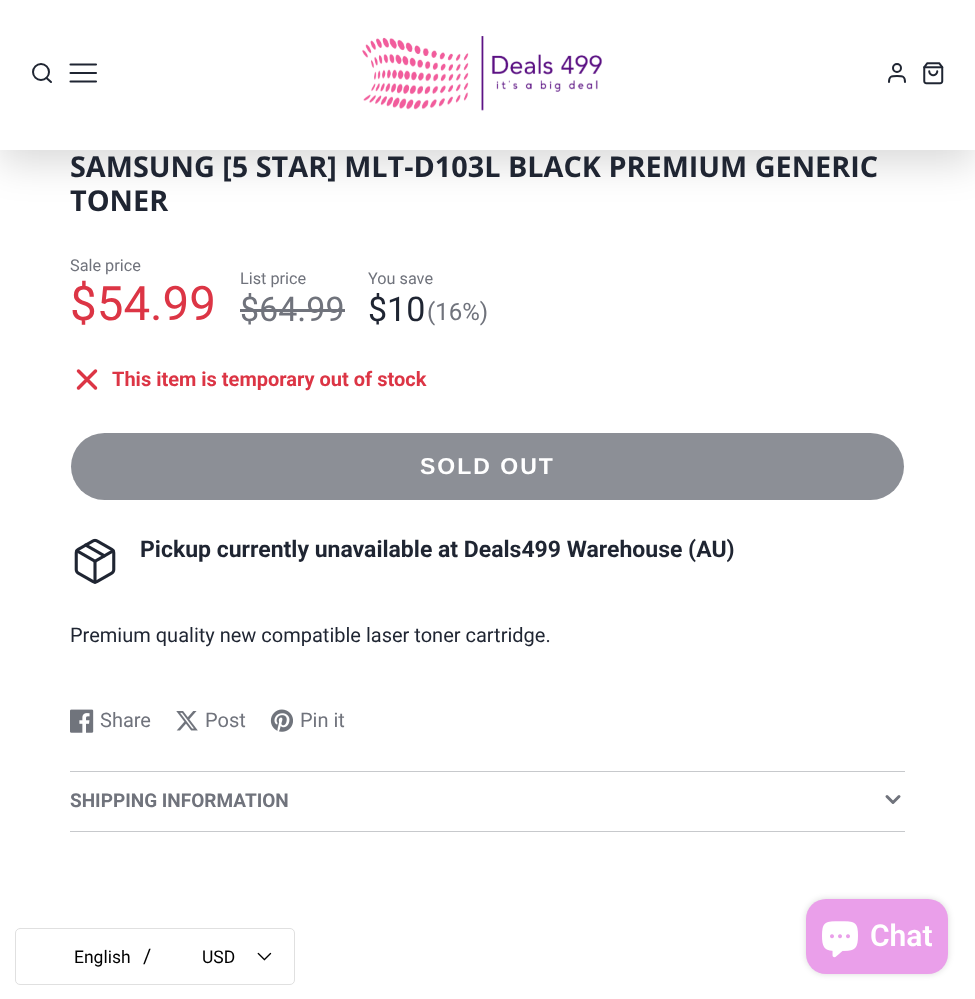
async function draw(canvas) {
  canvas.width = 975
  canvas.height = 999
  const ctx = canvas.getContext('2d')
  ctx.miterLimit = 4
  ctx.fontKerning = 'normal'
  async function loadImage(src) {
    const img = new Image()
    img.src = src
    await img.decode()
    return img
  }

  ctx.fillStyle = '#fff'
  ctx.fillRect(0, 0, 975, 999)
  ctx.fillStyle = '#00000026'
  ctx.filter = 'blur(19px)'
  ctx.beginPath()
  ctx.rect(0, 13, 975, 150)
  ctx.fill()
  ctx.filter = 'none'
  ctx.fillStyle = '#fff'
  ctx.fillRect(0, 0, 975, 150)
  ctx.beginPath()
  ctx.arc(41, 72, 8, 0, 2 * Math.PI)
  ctx.strokeStyle = '#1f2532'
  ctx.lineWidth = 2
  ctx.stroke()
  ctx.beginPath()
  ctx.moveTo(51, 82)
  ctx.lineTo(46.5, 78)
  ctx.lineCap = 'round'
  ctx.lineJoin = 'round'
  ctx.stroke()
  ctx.beginPath()
  ctx.moveTo(70.5, 73)
  ctx.lineTo(96, 73)
  ctx.moveTo(70.5, 64.5)
  ctx.lineTo(96, 64.5)
  ctx.moveTo(70.5, 81.5)
  ctx.lineTo(96, 81.5)
  ctx.lineWidth = 2.1
  ctx.stroke()
  ctx.drawImage(await loadImage('image0.png'), 362, 36, 241, 75)
  ctx.beginPath()
  ctx.arc(897, 68, 4, 0, 2 * Math.PI)
  ctx.lineWidth = 2
  ctx.stroke()
  ctx.beginPath()
  ctx.moveTo(905, 82)
  ctx.bezierCurveTo(905, 76, 902.5, 76, 897, 76)
  ctx.bezierCurveTo(891.5, 76, 889, 76, 889, 82)
  ctx.stroke()
  ctx.drawImage(await loadImage('image1.png'), 923, 62, 21, 23)
  ctx.font = 'bold 28.8px Open Sans'
  ctx.fillStyle = '#1f2532'
  ctx.fillText('SAMSUNG [5 STAR] MLT-D103L BLACK PREMIUM GENERIC', 70, 177)
  ctx.fillText('TONER', 70, 211)
  ctx.font = '16.25px Roboto'
  ctx.fillStyle = '#70737c'
  ctx.fillText('Sale price', 70, 271)
  ctx.font = '47.5px Roboto'
  ctx.fillStyle = '#dc3545'
  ctx.fillText('$54.99', 70, 320)
  ctx.font = '16.25px Roboto'
  ctx.fillStyle = '#70737c'
  ctx.fillText('List price', 240, 284)
  ctx.font = '34px Roboto'
  ctx.fillText('$64.99', 240, 321)
  ctx.fillRect(240, 309, 105, 3)
  ctx.font = '16.25px Roboto'
  ctx.fillText('You save', 368, 284)
  ctx.font = '34px Roboto'
  ctx.fillStyle = '#1f2532'
  ctx.fillText('$10', 368, 321)
  ctx.font = '24px Roboto'
  ctx.fillStyle = '#70737c'
  ctx.fillText('(16%)', 427, 320)
  ctx.beginPath()
  ctx.moveTo(95.5, 371)
  ctx.lineTo(78.5, 388)
  ctx.moveTo(78.5, 371)
  ctx.lineTo(95.5, 388)
  ctx.strokeStyle = '#dc3545'
  ctx.lineWidth = 3.5
  ctx.stroke()
  ctx.font = 'bold 20px Roboto'
  ctx.fillStyle = '#dc3545'
  ctx.fillText('This item is temporary out of stock', 112, 386)
  ctx.fillStyle = '#8c8f96'
  ctx.beginPath()
  ctx.roundRect(71, 433, 833, 67, 33.5)
  ctx.fill()
  ctx.letterSpacing = '2px'
  ctx.font = 'bold 23px Liberation Sans'
  ctx.fillStyle = '#fff'
  ctx.fillText('SOLD OUT', 420, 474)
  ctx.drawImage(await loadImage('image2.png'), 74, 538, 42, 46)
  ctx.letterSpacing = '0px'
  ctx.font = 'bold 23px Roboto'
  ctx.fillStyle = '#1f2532'
  ctx.fillText('Pickup currently unavailable at Deals499 Warehouse (AU)', 140, 557)
  ctx.font = '20px Roboto'
  ctx.fillText('Premium quality new compatible laser toner cartridge.', 70, 642)
  ctx.drawImage(await loadImage('image3.png'), 70, 709, 24, 24)
  ctx.fillStyle = '#70737c'
  ctx.fillText('Share', 100, 727)
  ctx.drawImage(await loadImage('image4.png'), 176, 711, 22, 20)
  ctx.fillText('Post', 205, 727)
  ctx.drawImage(await loadImage('image5.png'), 270, 709, 23, 23)
  ctx.fillText('Pin it', 300, 727)
  ctx.fillStyle = '#c7c9cc'
  ctx.fillRect(70, 771, 835, 1)
  ctx.font = 'bold 19px Roboto'
  ctx.fillStyle = '#70737c'
  ctx.fillText('SHIPPING INFORMATION', 70, 807)
  ctx.beginPath()
  ctx.moveTo(887, 796.5)
  ctx.lineTo(893, 802.5)
  ctx.lineTo(899, 796.5)
  ctx.strokeStyle = '#70737c'
  ctx.lineWidth = 3
  ctx.stroke()
  ctx.fillStyle = '#c7c9cc'
  ctx.fillRect(70, 831, 835, 1)
  ctx.fillStyle = '#00000026'
  ctx.filter = 'blur(3px)'
  ctx.beginPath()
  ctx.roundRect(806, 899, 142, 75, 20)
  ctx.fill()
  ctx.filter = 'none'
  ctx.fillStyle = '#ea9fea'
  ctx.beginPath()
  ctx.roundRect(806, 899, 142, 75, 20)
  ctx.fill()
  ctx.drawImage(await loadImage('image6.png'), 822, 921, 36, 37)
  ctx.font = '600 30px Roboto'
  ctx.fillStyle = '#fff'
  ctx.fillText('Chat', 870, 946)
  ctx.beginPath()
  ctx.roundRect(15.5, 928.5, 279, 56, 4.5)
  ctx.strokeStyle = '#e0e0e0'
  ctx.lineWidth = 1
  ctx.lineJoin = 'miter'
  ctx.stroke()
  ctx.font = '17.5px Roboto'
  ctx.fillStyle = '#000'
  ctx.fillText('English', 74, 963)
  ctx.font = '20px Roboto'
  ctx.fillText('/', 143, 963)
  ctx.font = '17.5px Roboto'
  ctx.fillText('USD', 202, 963)
  ctx.drawImage(await loadImage('image7.png'), 257, 952, 15, 9)
}

draw(document.querySelector('canvas'))
